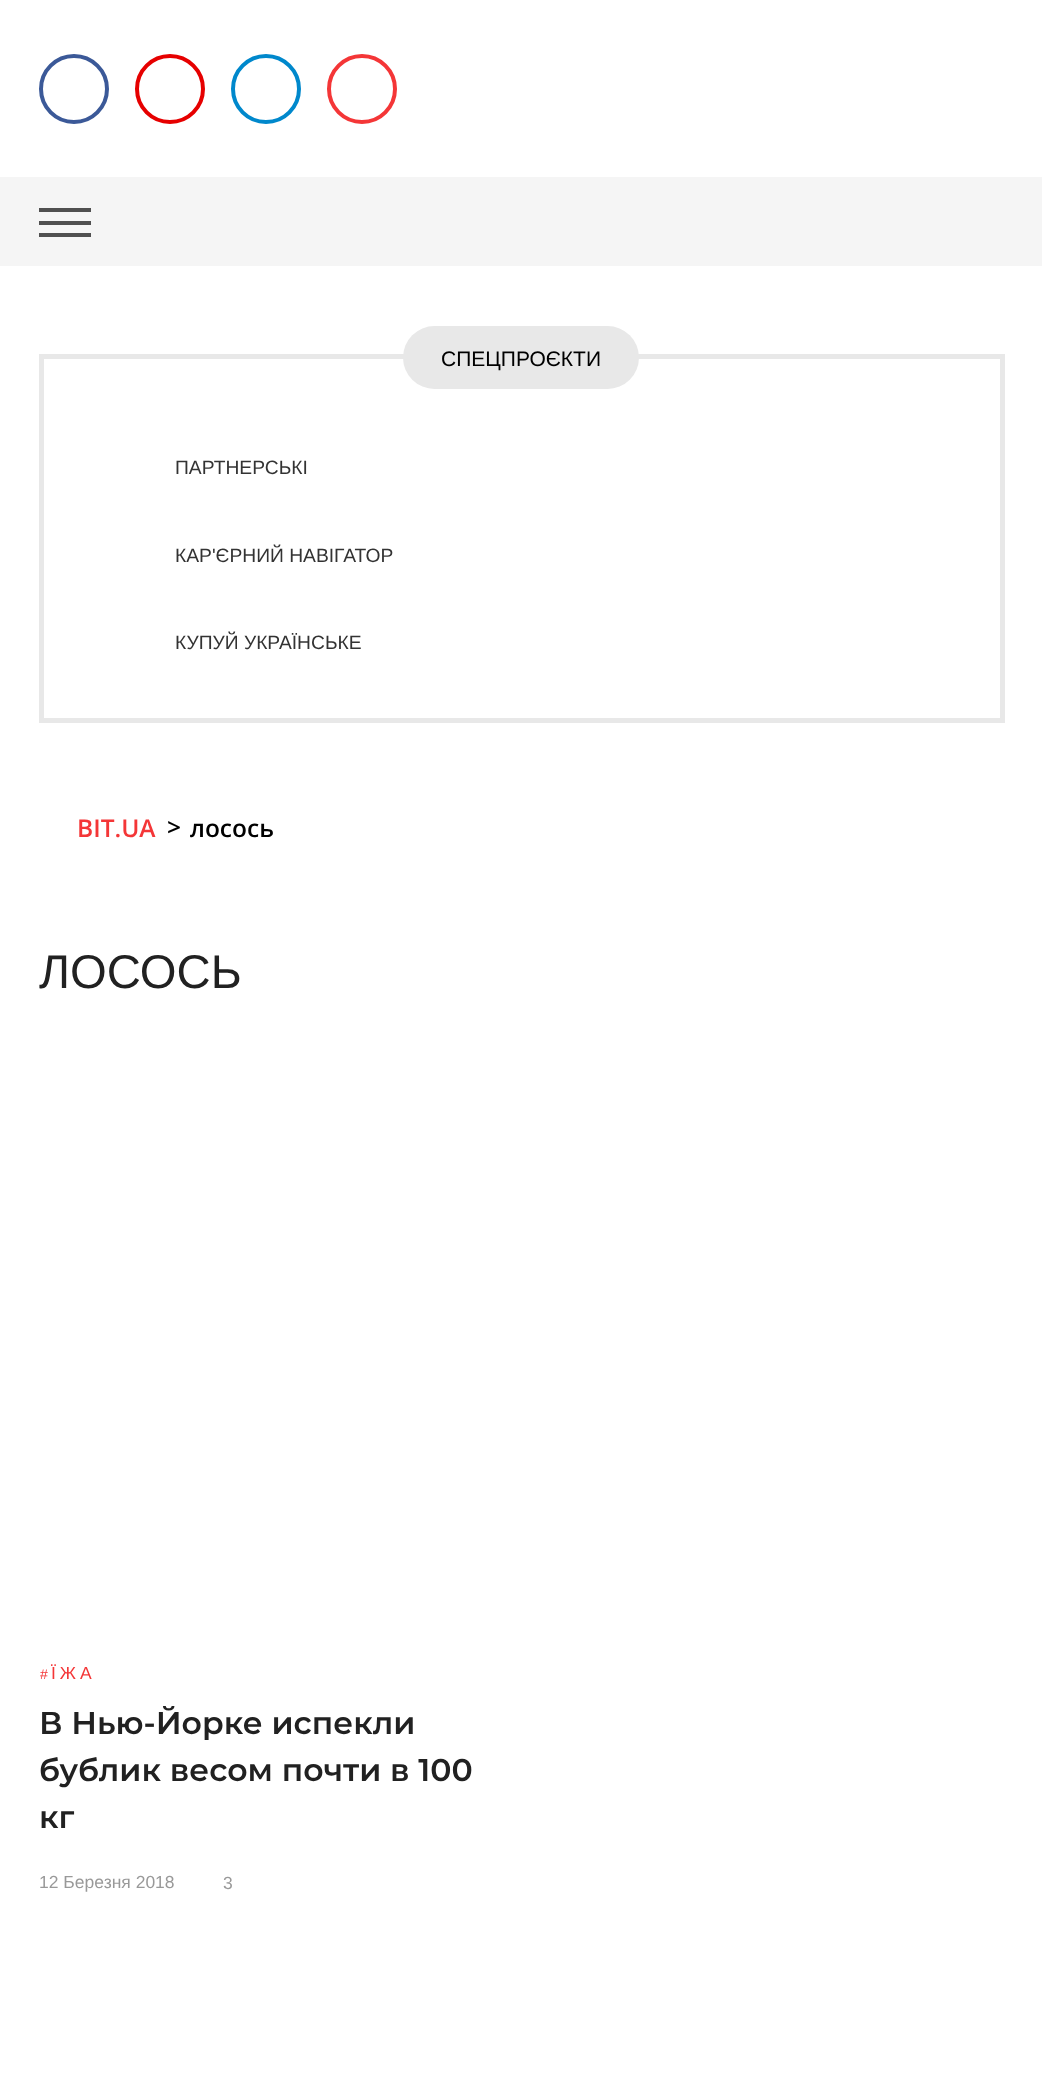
async function draw(canvas) {
  canvas.width = 1042
  canvas.height = 2073
  const ctx = canvas.getContext('2d')
  ctx.miterLimit = 4
  ctx.fontKerning = 'normal'

  ctx.fillStyle = '#fff'
  ctx.fillRect(0, 0, 1042, 2073)
  ctx.beginPath()
  ctx.arc(74, 89, 33, 0, 2 * Math.PI)
  ctx.strokeStyle = '#3b5998'
  ctx.lineWidth = 4
  ctx.stroke()
  ctx.beginPath()
  ctx.arc(170, 89, 33, 0, 2 * Math.PI)
  ctx.strokeStyle = '#e60000'
  ctx.stroke()
  ctx.beginPath()
  ctx.arc(266, 89, 33, 0, 2 * Math.PI)
  ctx.strokeStyle = '#08c'
  ctx.stroke()
  ctx.beginPath()
  ctx.arc(362, 89, 33, 0, 2 * Math.PI)
  ctx.strokeStyle = '#f43637'
  ctx.stroke()
  ctx.fillStyle = '#f5f5f5'
  ctx.fillRect(0, 177, 1042, 89)
  ctx.fillStyle = '#505050'
  ctx.fillRect(39, 221, 52, 4)
  ctx.fillRect(39, 208, 52, 4)
  ctx.fillRect(39, 233, 52, 4)
  ctx.strokeStyle = '#e8e8e8'
  ctx.lineWidth = 5
  ctx.strokeRect(41.5, 356.5, 961, 364)
  ctx.fillStyle = '#e8e8e8'
  ctx.beginPath()
  ctx.roundRect(403, 326, 236, 63, 31.5)
  ctx.fill()
  ctx.font = '21px Liberation Sans'
  ctx.fillStyle = '#000'
  ctx.fillText('СПЕЦПРОЄКТИ', 441, 366)
  ctx.font = '19.25px Liberation Sans'
  ctx.fillStyle = '#333'
  ctx.fillText('ПАРТНЕРСЬКІ', 175, 474)
  ctx.fillText('КАР\'ЄРНИЙ НАВІГАТОР', 175, 562)
  ctx.fillText('КУПУЙ УКРАЇНСЬКЕ', 175, 649)
  ctx.font = '600 24.5px Open Sans'
  ctx.fillStyle = '#f43637'
  ctx.fillText('BIT.UA', 77, 837)
  ctx.fillStyle = '#000'
  ctx.fillText('>', 167, 836)
  ctx.fillText('лосось', 190, 837)
  ctx.font = '47.25px Liberation Sans'
  ctx.fillStyle = '#212121'
  ctx.fillText('ЛОСОСЬ', 39, 988)
  ctx.letterSpacing = '4px'
  ctx.font = '14px Liberation Sans'
  ctx.fillStyle = '#f43637'
  ctx.fillText('#', 40, 1679)
  ctx.font = '17.5px Liberation Sans'
  ctx.fillText('ЇЖА', 51, 1679)
  ctx.letterSpacing = '0px'
  ctx.font = '600 31.5px Montserrat'
  ctx.fillStyle = '#212121'
  ctx.fillText('В Нью-Йорке испекли', 39, 1734)
  ctx.fillText('бублик весом почти в 100', 39, 1781)
  ctx.fillText('кг', 39, 1828)
  ctx.font = '17.5px Liberation Sans'
  ctx.fillStyle = '#999'
  ctx.fillText('12 Березня 2018', 39, 1888)
  ctx.fillText('3', 223, 1889)
}

draw(document.querySelector('canvas'))
